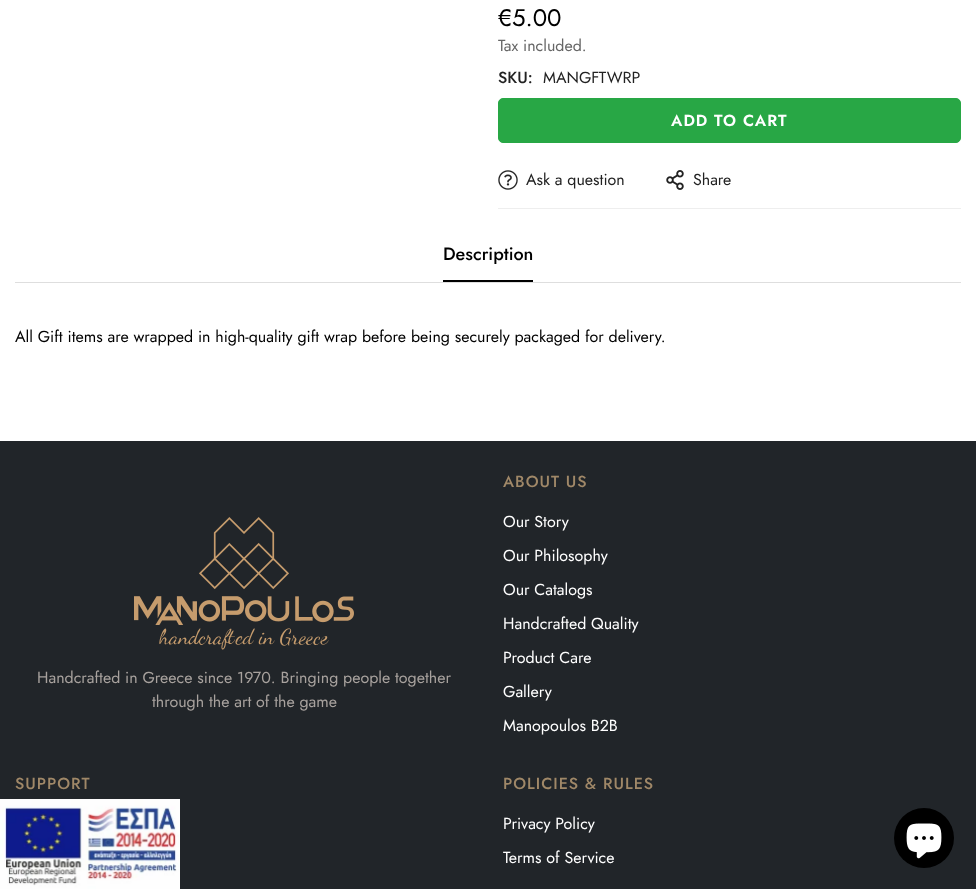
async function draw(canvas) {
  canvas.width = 976
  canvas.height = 889
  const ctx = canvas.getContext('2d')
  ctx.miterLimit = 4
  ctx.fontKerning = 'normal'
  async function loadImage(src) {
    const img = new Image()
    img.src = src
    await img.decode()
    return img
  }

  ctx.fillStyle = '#fff'
  ctx.fillRect(0, 0, 976, 889)
  ctx.font = '24px Jost'
  ctx.fillStyle = '#000'
  ctx.fillText('€5.00', 498, 26)
  ctx.font = '16px Jost'
  ctx.fillStyle = '#666'
  ctx.fillText('Tax included.', 498, 51)
  ctx.font = '500 16px Jost'
  ctx.fillStyle = '#222'
  ctx.fillText('SKU:', 498, 83)
  ctx.font = '16px Jost'
  ctx.fillText('MANGFTWRP', 543, 83)
  ctx.fillStyle = '#28a745'
  ctx.beginPath()
  ctx.roundRect(498.5, 98.5, 462, 44, 4.5)
  ctx.fill()
  ctx.strokeStyle = '#28a745'
  ctx.stroke()
  ctx.letterSpacing = '1px'
  ctx.font = '600 16px Jost'
  ctx.fillStyle = '#fff'
  ctx.fillText('ADD TO CART', 671, 126)
  ctx.fillStyle = '#eee'
  ctx.fillRect(498, 208, 463, 1)
  ctx.drawImage(await loadImage('image0.png'), 498, 170, 20, 20)
  ctx.letterSpacing = '0px'
  ctx.font = '16px Jost'
  ctx.fillStyle = '#222'
  ctx.fillText('Ask a question', 526, 185)
  ctx.drawImage(await loadImage('image1.png'), 666, 170, 18, 20)
  ctx.fillText('Share', 693, 185)
  ctx.fillStyle = '#dedede'
  ctx.fillRect(15, 282, 946, 1)
  ctx.font = '500 18px Jost'
  ctx.fillStyle = '#000'
  ctx.fillText('Description', 443, 260)
  ctx.fillRect(443, 280, 90, 2)
  ctx.font = '16px Jost'
  ctx.fillText('All Gift items are wrapped in high-quality gift wrap before being securely packaged for delivery.', 15, 342)
  ctx.fillStyle = '#212529'
  ctx.fillRect(0, 441, 976, 448)
  ctx.drawImage(await loadImage('image2.png'), 134, 517, 220, 133)
  ctx.fillStyle = '#a8a29e'
  ctx.fillText('Handcrafted in Greece since 1970. Bringing people together', 37, 683)
  ctx.fillText('through the art of the game', 152, 707)
  ctx.letterSpacing = '1px'
  ctx.font = '500 16px Jost'
  ctx.fillStyle = '#a08868'
  ctx.fillText('ABOUT US', 503, 487)
  ctx.letterSpacing = '0px'
  ctx.font = '16px Jost'
  ctx.fillStyle = '#fff'
  ctx.fillText('Our Story', 503, 527)
  ctx.fillText('Our Philosophy', 503, 561)
  ctx.fillText('Our Catalogs', 503, 595)
  ctx.fillText('Handcrafted Quality', 503, 629)
  ctx.fillText('Product Care', 503, 663)
  ctx.fillText('Gallery', 503, 697)
  ctx.fillText('Manopoulos B2B', 503, 731)
  ctx.letterSpacing = '1px'
  ctx.font = '500 16px Jost'
  ctx.fillStyle = '#a08868'
  ctx.fillText('SUPPORT', 15, 789)
  ctx.fillText('POLICIES & RULES', 503, 789)
  ctx.letterSpacing = '0px'
  ctx.font = '16px Jost'
  ctx.fillStyle = '#fff'
  ctx.fillText('Privacy Policy', 503, 829)
  ctx.fillText('Terms of Service', 503, 863)
  ctx.drawImage(await loadImage('image3.png'), 0, 799, 180, 90)
  ctx.fillStyle = '#000'
  ctx.beginPath()
  ctx.arc(924, 838, 30, 0, 2 * Math.PI)
  ctx.fill()
  ctx.drawImage(await loadImage('image4.png'), 906, 823, 36, 36)
}

draw(document.querySelector('canvas'))
